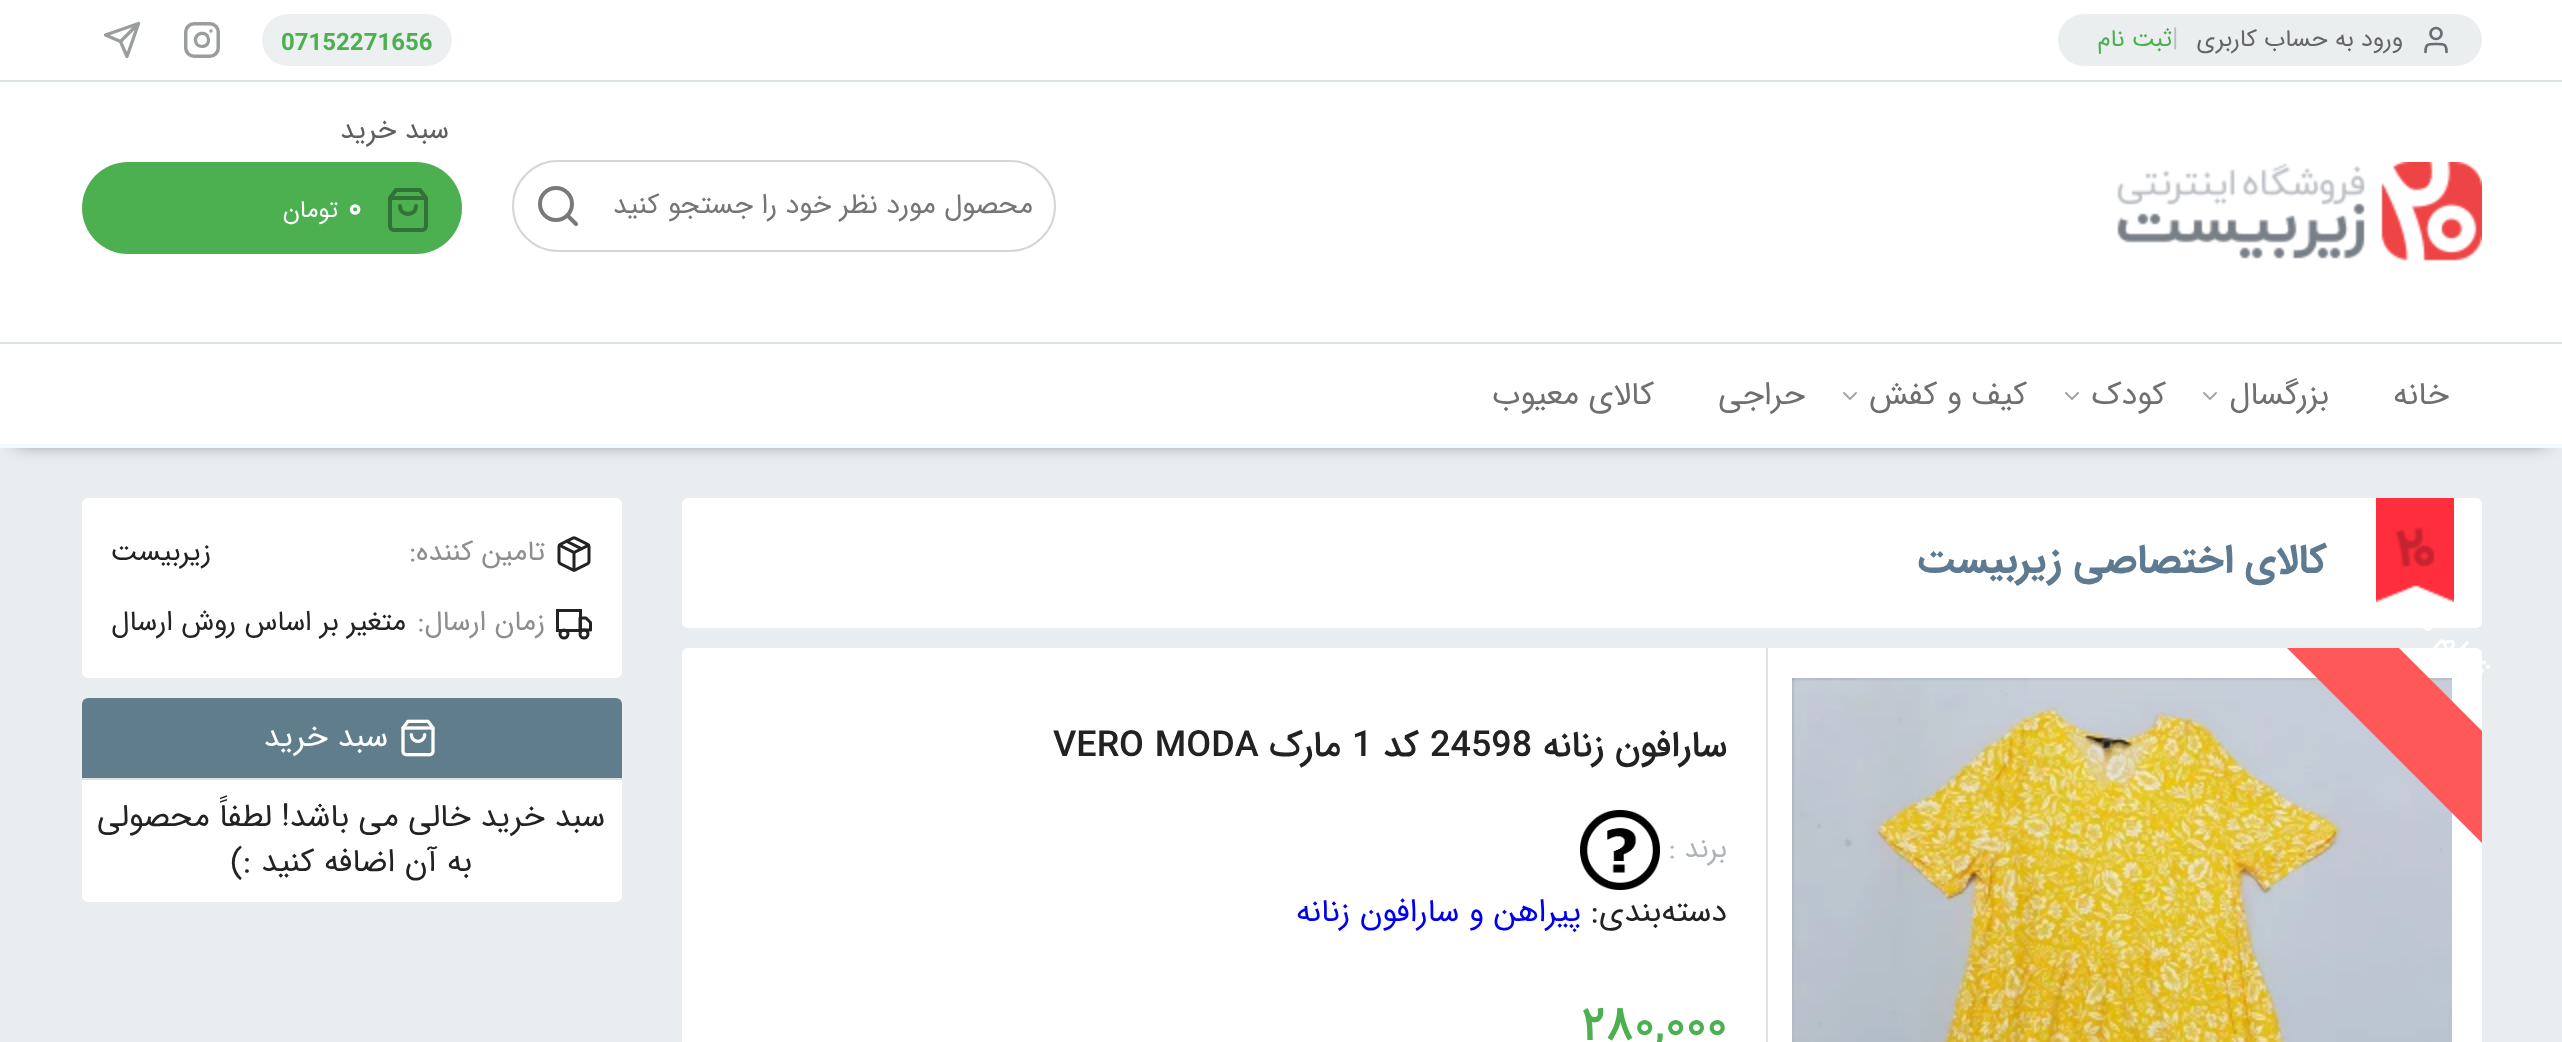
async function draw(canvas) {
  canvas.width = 2562
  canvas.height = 1042
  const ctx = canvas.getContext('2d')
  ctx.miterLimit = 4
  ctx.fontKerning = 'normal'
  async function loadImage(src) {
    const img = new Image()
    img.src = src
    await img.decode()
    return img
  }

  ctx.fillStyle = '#eaedef'
  ctx.fillRect(0, 0, 2562, 1042)
  ctx.fillStyle = '#fff'
  ctx.fillRect(0, 0, 2562, 80)
  ctx.fillStyle = '#dbe2e4'
  ctx.fillRect(0, 80, 2562, 2)
  ctx.fillStyle = '#ebeeef'
  ctx.beginPath()
  ctx.roundRect(2058, 14, 424, 52, 26)
  ctx.fill()
  ctx.beginPath()
  ctx.arc(2436, 33.5, 5.5, 0, 2 * Math.PI)
  ctx.strokeStyle = '#6a6b73'
  ctx.lineWidth = 2.7
  ctx.stroke()
  ctx.beginPath()
  ctx.moveTo(2446.5, 52)
  ctx.bezierCurveTo(2446.5, 43.5, 2443.5, 44, 2436, 44)
  ctx.bezierCurveTo(2428.5, 44, 2425.5, 43.5, 2425.5, 52)
  ctx.lineCap = 'round'
  ctx.lineJoin = 'round'
  ctx.stroke()
  ctx.direction = 'rtl'
  ctx.font = '24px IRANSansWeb'
  ctx.fillStyle = '#656565'
  ctx.fillText('ورود به حساب کاربری', 2403, 46)
  ctx.direction = 'ltr'
  ctx.font = '26px IRANSansWeb'
  ctx.fillStyle = '#bdbdbd'
  ctx.fillText('|', 2172, 46)
  ctx.direction = 'rtl'
  ctx.font = '24px IRANSansWeb'
  ctx.fillStyle = '#4caf50'
  ctx.fillText('ثبت نام', 2172, 46)
  ctx.fillStyle = '#edf0f1'
  ctx.beginPath()
  ctx.roundRect(262, 14, 190, 52, 26)
  ctx.fill()
  ctx.direction = 'ltr'
  ctx.font = 'bold 24px IRANSansWeb'
  ctx.fillStyle = '#4caf50'
  ctx.fillText('07152271656', 281, 50)
  ctx.beginPath()
  ctx.roundRect(185.75, 23.75, 32.5, 32.5, 8.25)
  ctx.strokeStyle = '#9a9d9e'
  ctx.lineWidth = 3.5
  ctx.lineJoin = 'miter'
  ctx.stroke()
  ctx.beginPath()
  ctx.moveTo(208.5, 39)
  ctx.bezierCurveTo(210, 47.5, 197, 49.5, 195.5, 41)
  ctx.bezierCurveTo(194, 32.5, 207.5, 30, 208.5, 39)
  ctx.closePath()
  ctx.moveTo(211, 31)
  ctx.lineTo(211, 31)
  ctx.lineWidth = 3.3
  ctx.lineJoin = 'round'
  ctx.stroke()
  ctx.beginPath()
  ctx.moveTo(138.5, 23.5)
  ctx.lineTo(120.5, 41.5)
  ctx.moveTo(138.5, 23.5)
  ctx.lineTo(127, 56.5)
  ctx.lineTo(120.5, 41.5)
  ctx.lineTo(105.5, 35)
  ctx.closePath()
  ctx.stroke()
  ctx.fillStyle = '#fff'
  ctx.fillRect(0, 82, 2562, 260)
  ctx.fillStyle = '#dbe2e4'
  ctx.fillRect(0, 342, 2562, 2)
  ctx.drawImage(await loadImage('image0.png'), 2117, 162, 365, 99)
  ctx.beginPath()
  ctx.roundRect(513, 161, 542, 90, 45)
  ctx.strokeStyle = '#d6d6d6'
  ctx.lineWidth = 2
  ctx.lineJoin = 'miter'
  ctx.stroke()
  ctx.direction = 'rtl'
  ctx.font = '28px IRANSansWeb'
  ctx.fillStyle = '#757575'
  ctx.fillText('محصول مورد نظر خود را جستجو کنید', 1033, 213)
  ctx.beginPath()
  ctx.arc(556, 204, 16, 0, 2 * Math.PI)
  ctx.strokeStyle = '#797979'
  ctx.lineWidth = 4
  ctx.stroke()
  ctx.beginPath()
  ctx.moveTo(576, 224)
  ctx.lineTo(567.5, 215.5)
  ctx.lineJoin = 'round'
  ctx.stroke()
  ctx.fillStyle = '#5f5f5f'
  ctx.fillText('سبد خرید', 449, 138)
  ctx.fillStyle = '#4caf50'
  ctx.beginPath()
  ctx.roundRect(82, 162, 380, 92, 46)
  ctx.fill()
  ctx.beginPath()
  ctx.moveTo(396, 190)
  ctx.lineTo(390, 198)
  ctx.lineTo(390, 226)
  ctx.bezierCurveTo(390, 228, 392, 230, 394, 230)
  ctx.lineTo(422, 230)
  ctx.bezierCurveTo(424, 230, 426, 228, 426, 226)
  ctx.lineTo(426, 198)
  ctx.lineTo(420, 190)
  ctx.closePath()
  ctx.moveTo(390, 198)
  ctx.lineTo(426, 198)
  ctx.moveTo(416, 206)
  ctx.bezierCurveTo(416, 216.5, 400, 216.5, 400, 206)
  ctx.strokeStyle = '#317335'
  ctx.stroke()
  ctx.direction = 'ltr'
  ctx.font = 'bold 32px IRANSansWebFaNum'
  ctx.fillStyle = '#fff'
  ctx.fillText('0', 348, 217)
  ctx.direction = 'rtl'
  ctx.font = '24px IRANSansWeb'
  ctx.fillText('تومان', 338, 217)
  ctx.fillStyle = '#000000bd'
  ctx.filter = 'blur(10px)'
  ctx.beginPath()
  ctx.rect(16, 368, 2530, 72)
  ctx.fill()
  ctx.filter = 'none'
  ctx.fillStyle = '#fff'
  ctx.fillRect(0, 344, 2562, 100)
  ctx.fillStyle = '#f2faff'
  ctx.fillRect(0, 444, 2562, 4)
  ctx.font = '32px IRANSansWeb'
  ctx.fillStyle = '#6f6f6f'
  ctx.fillText('خانه', 2449, 404)
  ctx.fillText('بزرگسال', 2329, 404)
  ctx.beginPath()
  ctx.moveTo(2204, 393)
  ctx.lineTo(2210, 399)
  ctx.lineTo(2216, 393)
  ctx.strokeStyle = '#a5a5a5'
  ctx.lineWidth = 2
  ctx.stroke()
  ctx.fillText('کودک', 2166, 404)
  ctx.beginPath()
  ctx.moveTo(2066, 393)
  ctx.lineTo(2072, 399)
  ctx.lineTo(2078, 393)
  ctx.stroke()
  ctx.fillText('کیف و کفش', 2027, 404)
  ctx.beginPath()
  ctx.moveTo(1844, 393)
  ctx.lineTo(1850, 399)
  ctx.lineTo(1856, 393)
  ctx.stroke()
  ctx.fillText('حراجی', 1805, 404)
  ctx.fillText('کالای معیوب', 1654, 404)
  ctx.fillStyle = '#fff'
  ctx.beginPath()
  ctx.roundRect(682, 498, 1800, 130, 6)
  ctx.fill()
  ctx.drawImage(await loadImage('image1.png'), 2376, 498, 78, 104)
  ctx.font = 'bold 40px IRANSansWeb'
  ctx.fillStyle = '#5e7a90'
  ctx.fillText('کالای اختصاصی زیربیست', 2327, 572)
  ctx.fillStyle = '#fff'
  ctx.beginPath()
  ctx.roundRect(682, 648, 1800, 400, 6)
  ctx.fill()
  ctx.fillStyle = '#dfe3e6'
  ctx.fillRect(1766, 648, 2, 394)
  ctx.drawImage(await loadImage('image2.png'), 1792, 678, 660, 364)
  ctx.save()
  ctx.beginPath()
  ctx.rect(1768, 648, 714, 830)
  ctx.clip()
  ctx.fillStyle = '#ff5859'
  ctx.beginPath()
  ctx.moveTo(2340, 589)
  ctx.lineTo(2538, 787)
  ctx.lineTo(2482, 843)
  ctx.lineTo(2284, 645)
  ctx.closePath()
  ctx.fill()
  ctx.restore()
  ctx.font = '34px IRANSansWeb'
  ctx.fillStyle = '#fff'
  ctx.save()
  ctx.translate(2477, 682)
  ctx.rotate(45 * Math.PI / 180)
  ctx.fillText('تمام شد', 0, 0)
  ctx.restore()
  ctx.font = '500 36px IRANSansWeb'
  ctx.fillStyle = '#222'
  ctx.fillText('سارافون زنانه', 1727, 756)
  ctx.direction = 'ltr'
  ctx.fillText('24598', 1430, 756)
  ctx.direction = 'rtl'
  ctx.fillText('کد', 1419, 756)
  ctx.direction = 'ltr'
  ctx.fillText('1', 1352, 756)
  ctx.direction = 'rtl'
  ctx.fillText('مارک', 1341, 756)
  ctx.direction = 'ltr'
  ctx.fillText('VERO MODA', 1053, 756)
  ctx.direction = 'rtl'
  ctx.font = '28px IRANSansWeb'
  ctx.fillStyle = '#aeb5b9'
  ctx.fillText('برند :', 1727, 857)
  ctx.drawImage(await loadImage('image3.png'), 1580, 810, 80, 80)
  ctx.font = '32px IRANSansWeb'
  ctx.fillStyle = '#222'
  ctx.fillText('دسته‌بندی:', 1727, 921)
  ctx.fillStyle = '#00e'
  ctx.fillText('پیراهن و سارافون زنانه', 1581, 921)
  ctx.direction = 'ltr'
  ctx.font = '500 48px IRANSansWebFaNum'
  ctx.fillStyle = '#4caf50'
  ctx.fillText('280,000', 1582, 1039)
  ctx.fillStyle = '#fff'
  ctx.beginPath()
  ctx.roundRect(82, 498, 540, 180, 6)
  ctx.fill()
  ctx.drawImage(await loadImage('image4.png'), 557, 536, 34, 36)
  ctx.direction = 'rtl'
  ctx.font = '28px IRANSansWeb'
  ctx.fillStyle = '#8e8e8e'
  ctx.fillText('تامین کننده:', 545, 560)
  ctx.fillStyle = '#222'
  ctx.fillText('زیربیست', 211, 560)
  ctx.strokeStyle = '#222'
  ctx.lineWidth = 3
  ctx.lineJoin = 'miter'
  ctx.strokeRect(557.5, 610.5, 23, 20)
  ctx.beginPath()
  ctx.moveTo(580, 618)
  ctx.lineTo(586, 618)
  ctx.lineTo(590.5, 622.5)
  ctx.lineTo(590.5, 630)
  ctx.lineTo(580, 630)
  ctx.closePath()
  ctx.lineJoin = 'round'
  ctx.stroke()
  ctx.beginPath()
  ctx.arc(584, 634, 4, 0, 2 * Math.PI)
  ctx.stroke()
  ctx.beginPath()
  ctx.arc(564, 634, 4, 0, 2 * Math.PI)
  ctx.stroke()
  ctx.fillStyle = '#8e8e8e'
  ctx.fillText('زمان ارسال:', 545, 630)
  ctx.fillStyle = '#222'
  ctx.fillText('متغیر بر اساس روش ارسال', 406, 630)
  ctx.fillStyle = '#fff'
  ctx.beginPath()
  ctx.roundRect(82, 698, 540, 204, 6)
  ctx.fill()
  ctx.fillStyle = '#607d8b'
  ctx.beginPath()
  ctx.roundRect(82, 698, 540, 82, [6, 6, 0, 0])
  ctx.fill()
  ctx.fillStyle = '#e0e0e0'
  ctx.fillRect(82, 778, 540, 2)
  ctx.drawImage(await loadImage('image5.png'), 401, 719, 34, 38)
  ctx.font = '32px IRANSansWeb'
  ctx.fillStyle = '#fff'
  ctx.fillText('سبد خرید', 388, 746)
  ctx.fillStyle = '#222'
  ctx.fillText('سبد خرید خالی می باشد! لطفاً محصولی', 605, 826)
  ctx.fillText('به آن اضافه کنید :)', 472, 871)
}

draw(document.querySelector('canvas'))
